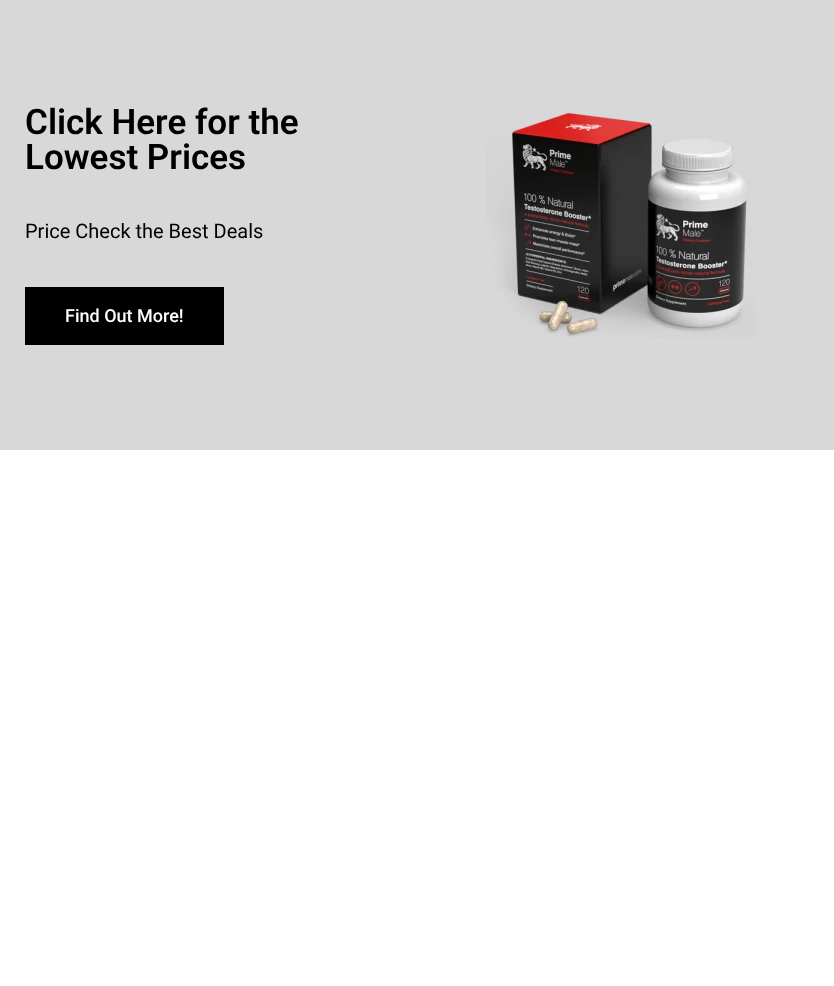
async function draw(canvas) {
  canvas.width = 834
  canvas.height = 986
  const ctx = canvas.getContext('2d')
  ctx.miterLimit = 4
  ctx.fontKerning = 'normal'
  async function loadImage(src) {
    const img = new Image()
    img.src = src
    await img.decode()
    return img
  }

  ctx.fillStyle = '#fff'
  ctx.fillRect(0, 0, 834, 986)
  ctx.fillStyle = '#d8d8d8'
  ctx.fillRect(0, 0, 834, 450)
  ctx.font = '600 35px Roboto'
  ctx.fillStyle = '#000'
  ctx.fillText('Click Here for the', 25, 134)
  ctx.fillText('Lowest Prices', 25, 169)
  ctx.font = '20px Roboto'
  ctx.fillText('Price Check the Best Deals', 25, 238)
  ctx.fillRect(25, 287, 199, 58)
  ctx.font = '500 18px Roboto'
  ctx.fillStyle = '#fff'
  ctx.fillText('Find Out More!', 65, 322)
  ctx.drawImage(await loadImage('image0.png'), 486, 112, 270, 227)
}

draw(document.querySelector('canvas'))
